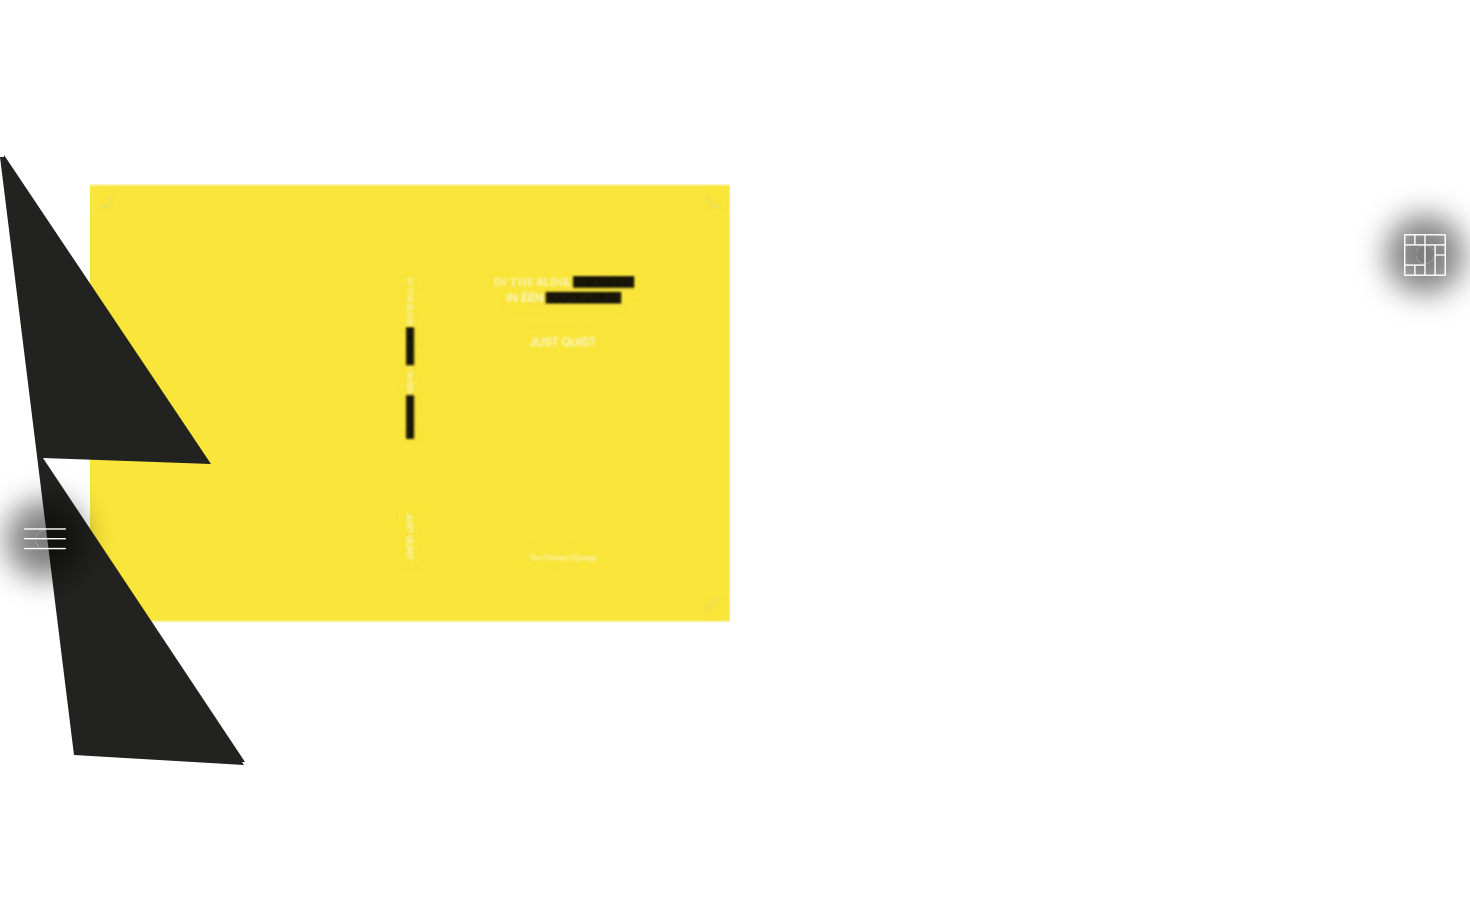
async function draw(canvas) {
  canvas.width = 1470
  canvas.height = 918
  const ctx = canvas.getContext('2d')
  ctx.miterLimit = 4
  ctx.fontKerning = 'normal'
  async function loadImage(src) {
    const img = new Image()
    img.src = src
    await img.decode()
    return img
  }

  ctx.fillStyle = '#fff'
  ctx.fillRect(0, 0, 1470, 918)
  ctx.drawImage(await loadImage('image2.png'), 90, 184, 640, 439)
  ctx.fillStyle = '#222221'
  ctx.beginPath()
  ctx.moveTo(0, 157)
  ctx.lineTo(4, 157)
  ctx.lineTo(4, 155)
  ctx.lineTo(211, 464)
  ctx.lineTo(43, 458)
  ctx.lineTo(245, 762)
  ctx.lineTo(242, 762)
  ctx.lineTo(244, 765)
  ctx.lineTo(74, 755)
  ctx.closePath()
  ctx.fill()
  ctx.save()
  ctx.beginPath()
  ctx.moveTo(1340, 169)
  ctx.lineTo(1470, 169)
  ctx.lineTo(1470, 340)
  ctx.lineTo(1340, 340)
  ctx.closePath()
  ctx.moveTo(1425, 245)
  ctx.bezierCurveTo(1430, 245, 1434, 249, 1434, 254)
  ctx.lineTo(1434, 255)
  ctx.bezierCurveTo(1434, 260, 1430, 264, 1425, 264)
  ctx.bezierCurveTo(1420, 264, 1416, 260, 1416, 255)
  ctx.lineTo(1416, 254)
  ctx.bezierCurveTo(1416, 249, 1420, 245, 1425, 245)
  ctx.closePath()
  ctx.clip('evenodd')
  ctx.fillStyle = '#00000080'
  ctx.filter = 'blur(15px)'
  ctx.beginPath()
  ctx.roundRect(1386, 215, 78, 79, 39)
  ctx.fill()
  ctx.filter = 'none'
  ctx.restore()
  ctx.fillStyle = '#00000080'
  ctx.beginPath()
  ctx.roundRect(1416, 245, 18, 19, 9)
  ctx.fill()
  ctx.drawImage(await loadImage('image0.png'), 1404, 234, 42, 42)
  ctx.save()
  ctx.beginPath()
  ctx.moveTo(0, 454)
  ctx.lineTo(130, 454)
  ctx.lineTo(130, 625)
  ctx.lineTo(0, 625)
  ctx.closePath()
  ctx.moveTo(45, 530)
  ctx.bezierCurveTo(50, 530, 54, 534, 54, 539)
  ctx.lineTo(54, 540)
  ctx.bezierCurveTo(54, 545, 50, 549, 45, 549)
  ctx.bezierCurveTo(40, 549, 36, 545, 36, 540)
  ctx.lineTo(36, 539)
  ctx.bezierCurveTo(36, 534, 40, 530, 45, 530)
  ctx.closePath()
  ctx.clip('evenodd')
  ctx.filter = 'blur(15px)'
  ctx.beginPath()
  ctx.roundRect(6, 500, 78, 79, 39)
  ctx.fill()
  ctx.filter = 'none'
  ctx.restore()
  ctx.beginPath()
  ctx.roundRect(36, 530, 18, 19, 9)
  ctx.fill()
  ctx.drawImage(await loadImage('image1.png'), 24, 528, 42, 22)
}

draw(document.querySelector('canvas'))
